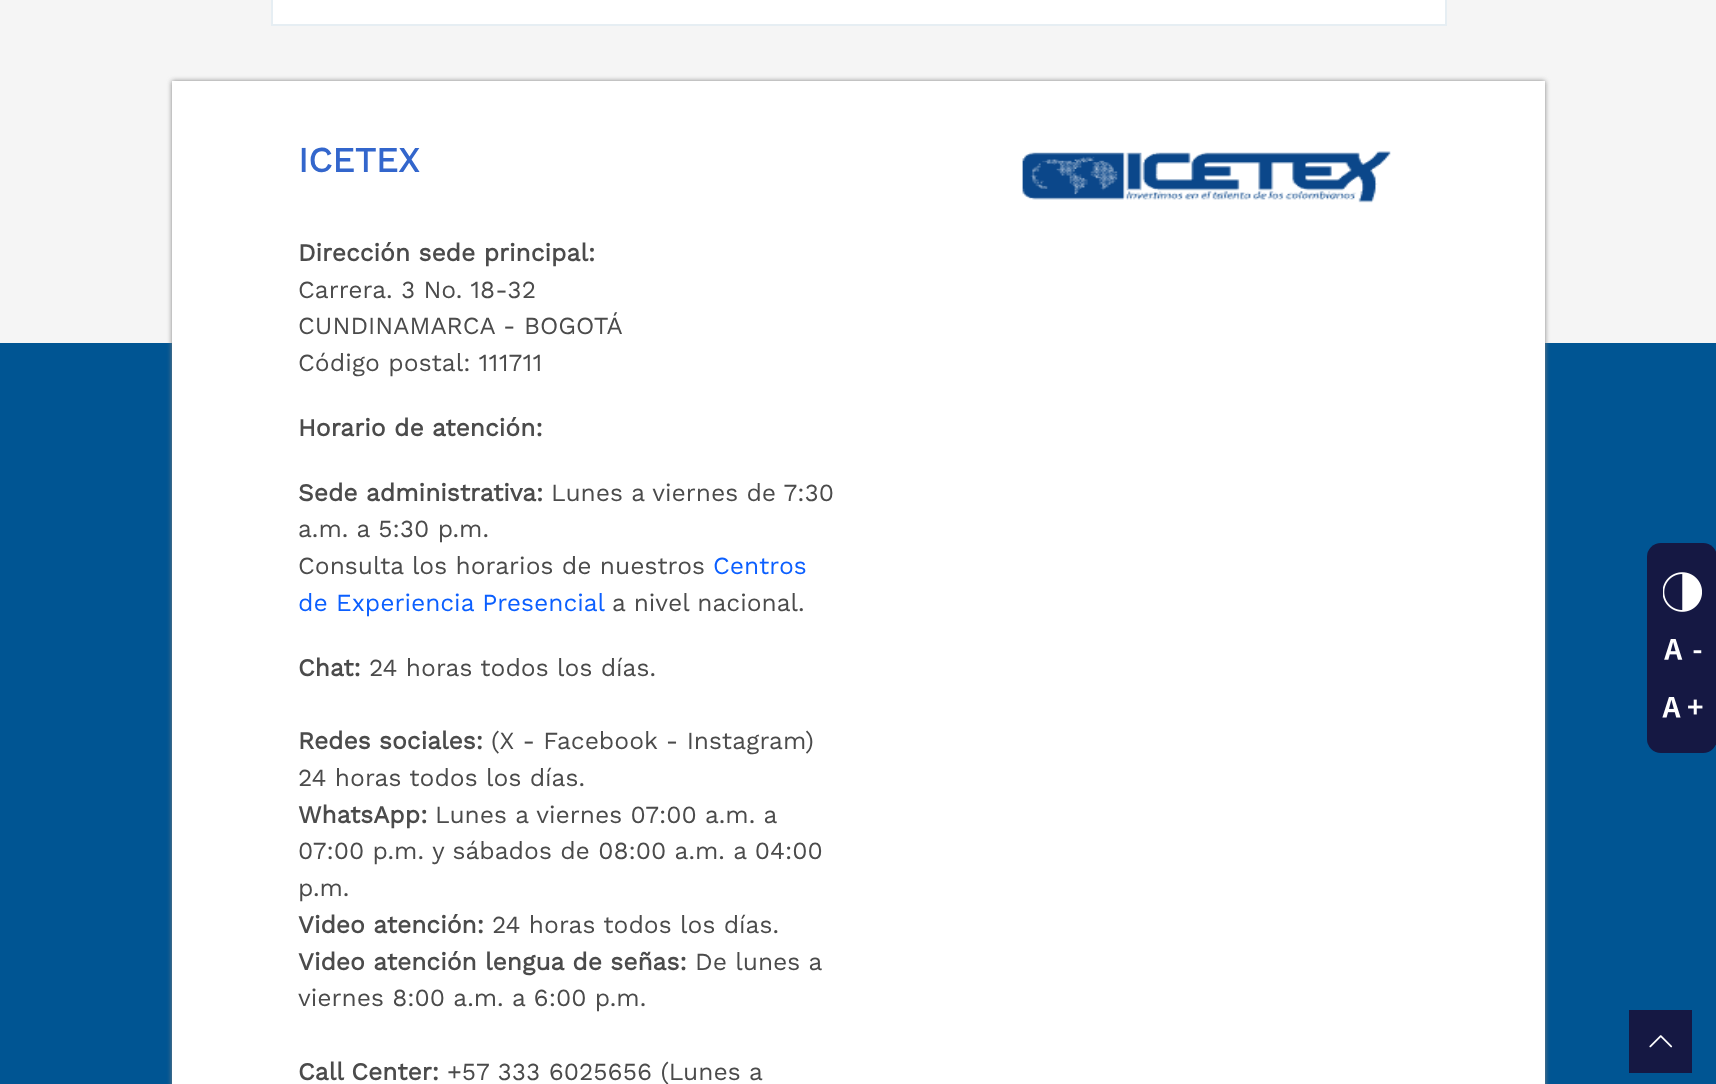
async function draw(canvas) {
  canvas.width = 1716
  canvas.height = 1084
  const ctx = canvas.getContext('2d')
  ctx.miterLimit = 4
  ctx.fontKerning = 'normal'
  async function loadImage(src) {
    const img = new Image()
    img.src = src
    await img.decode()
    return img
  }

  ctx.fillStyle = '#f5f5f5'
  ctx.fillRect(0, 0, 1716, 1084)
  ctx.fillStyle = '#fff'
  ctx.beginPath()
  ctx.rect(272, -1, 1174, 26)
  ctx.fill()
  ctx.strokeStyle = '#e6eef3'
  ctx.lineWidth = 2
  ctx.stroke()
  ctx.fillStyle = '#005593'
  ctx.fillRect(0, 343, 1716, 741)
  ctx.fillStyle = '#808080'
  ctx.filter = 'blur(2.5px)'
  ctx.beginPath()
  ctx.rect(172, 81, 1373, 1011)
  ctx.fill()
  ctx.filter = 'none'
  ctx.fillStyle = '#fff'
  ctx.fillRect(172, 81, 1373, 1003)
  ctx.font = 'bold 35px Work Sans'
  ctx.fillStyle = '#36c'
  ctx.fillText('ICETEX', 298, 172)
  ctx.drawImage(await loadImage('image0.png'), 1022, 151, 369, 52)
  ctx.font = 'bold 24.5px Work Sans'
  ctx.fillStyle = '#4b4b4b'
  ctx.fillText('Dirección sede principal:', 298, 261)
  ctx.font = '24.5px Work Sans'
  ctx.fillText('Carrera. 3 No. 18-32', 298, 298)
  ctx.fillText('CUNDINAMARCA - BOGOTÁ', 298, 334)
  ctx.fillText('Código postal: 111711', 298, 371)
  ctx.font = 'bold 24.5px Work Sans'
  ctx.fillText('Horario de atención:', 298, 436)
  ctx.fillText('Sede administrativa:', 298, 501)
  ctx.font = '24.5px Work Sans'
  ctx.fillText('Lunes a viernes de 7:30', 551, 501)
  ctx.fillText('a.m. a 5:30 p.m.', 298, 537)
  ctx.fillText('Consulta los horarios de nuestros', 298, 574)
  ctx.fillStyle = '#0b5fff'
  ctx.fillText('Centros', 713, 574)
  ctx.fillText('de Experiencia Presencial', 298, 611)
  ctx.fillStyle = '#4b4b4b'
  ctx.fillText('a nivel nacional.', 612, 611)
  ctx.font = 'bold 24.5px Work Sans'
  ctx.fillText('Chat:', 298, 676)
  ctx.font = '24.5px Work Sans'
  ctx.fillText('24 horas todos los días.', 369, 676)
  ctx.font = 'bold 24.5px Work Sans'
  ctx.fillText('Redes sociales:', 298, 749)
  ctx.font = '24.5px Work Sans'
  ctx.fillText('(X - Facebook - Instagram)', 491, 749)
  ctx.fillText('24 horas todos los días.', 298, 786)
  ctx.font = 'bold 24.5px Work Sans'
  ctx.fillText('WhatsApp:', 298, 823)
  ctx.font = '24.5px Work Sans'
  ctx.fillText('Lunes a viernes 07:00 a.m. a', 435, 823)
  ctx.fillText('07:00 p.m. y sábados de 08:00 a.m. a 04:00', 298, 859)
  ctx.fillText('p.m.', 298, 896)
  ctx.font = 'bold 24.5px Work Sans'
  ctx.fillText('Video atención:', 298, 933)
  ctx.font = '24.5px Work Sans'
  ctx.fillText('24 horas todos los días.', 492, 933)
  ctx.font = 'bold 24.5px Work Sans'
  ctx.fillText('Video atención lengua de señas:', 298, 970)
  ctx.font = '24.5px Work Sans'
  ctx.fillText('De lunes a', 695, 970)
  ctx.fillText('viernes 8:00 a.m. a 6:00 p.m.', 298, 1006)
  ctx.font = 'bold 24.5px Work Sans'
  ctx.fillText('Call Center:', 298, 1080)
  ctx.font = '24.5px Work Sans'
  ctx.fillText('+57 333 6025656 (Lunes a', 447, 1080)
  ctx.fillStyle = '#151843'
  ctx.fillRect(1629, 1010, 63, 63)
  ctx.drawImage(await loadImage('image1.png'), 1649, 1035, 24, 13)
  ctx.beginPath()
  ctx.roundRect(1647, 543, 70, 210, 14)
  ctx.fill()
  ctx.drawImage(await loadImage('image2.png'), 1663, 572, 39, 40)
  ctx.drawImage(await loadImage('image3.png'), 1664, 639, 38, 21)
  ctx.drawImage(await loadImage('image4.png'), 1662, 697, 41, 21)
}

draw(document.querySelector('canvas'))
